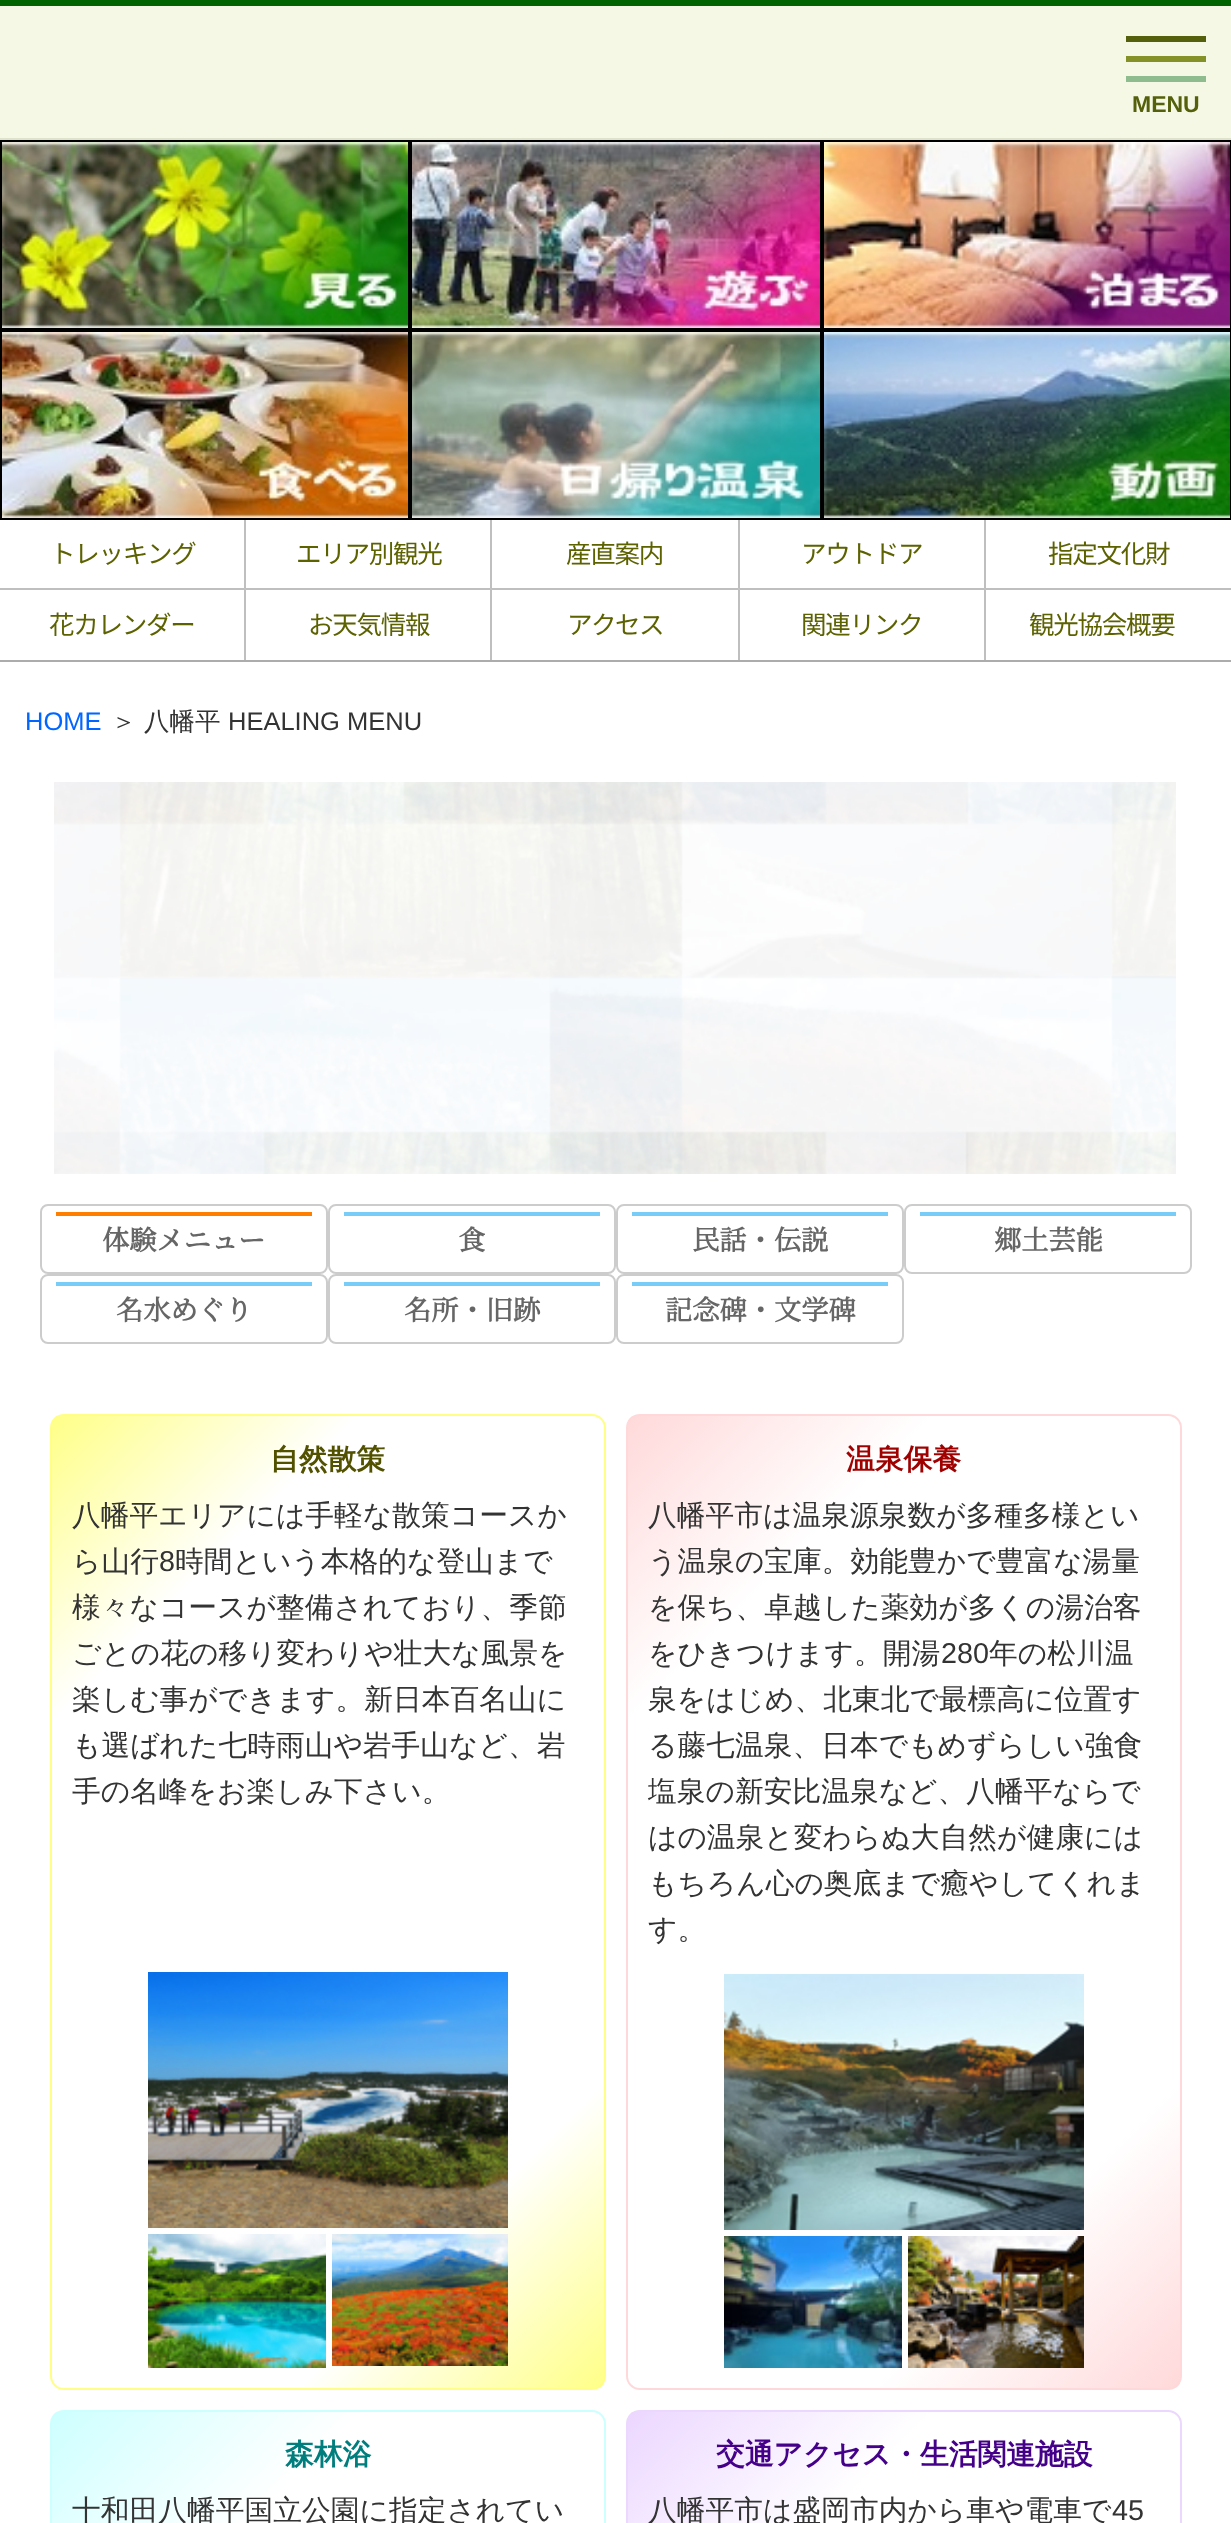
async function draw(canvas) {
  canvas.width = 1231
  canvas.height = 2523
  const ctx = canvas.getContext('2d')
  ctx.miterLimit = 4
  ctx.fontKerning = 'normal'
  async function loadImage(src) {
    const img = new Image()
    img.src = src
    await img.decode()
    return img
  }
  let gradient

  ctx.fillStyle = '#fff'
  ctx.fillRect(0, 0, 1231, 2523)
  ctx.fillStyle = '#f5f8e4'
  ctx.fillRect(0, 6, 1231, 132)
  ctx.fillStyle = '#006400'
  ctx.fillRect(0, 0, 1231, 6)
  ctx.fillStyle = '#e0e3cc'
  ctx.fillRect(0, 138, 1231, 2)
  ctx.fillStyle = '#849127'
  ctx.fillRect(1126, 56, 80, 6)
  ctx.fillStyle = '#55600c'
  ctx.fillRect(1126, 36, 80, 6)
  ctx.fillStyle = '#8fbc8f'
  ctx.fillRect(1126, 76, 80, 6)
  ctx.font = 'bold 23px Liberation Sans'
  ctx.fillStyle = '#55600c'
  ctx.fillText('MENU', 1132, 112)
  ctx.fillStyle = '#000'
  ctx.fillRect(0, 140, 1231, 380)
  ctx.drawImage(await loadImage('image0.png'), 2, 142, 406, 186)
  ctx.drawImage(await loadImage('image1.png'), 412, 142, 408, 186)
  ctx.drawImage(await loadImage('image2.png'), 824, 142, 406, 186)
  ctx.drawImage(await loadImage('image3.png'), 2, 332, 406, 186)
  ctx.drawImage(await loadImage('image4.png'), 412, 332, 408, 186)
  ctx.drawImage(await loadImage('image5.png'), 824, 332, 406, 186)
  ctx.fillStyle = '#acacac'
  ctx.fillRect(0, 660, 1231, 2)
  ctx.fillStyle = '#bfbfbf'
  ctx.beginPath()
  ctx.moveTo(246, 520)
  ctx.lineTo(246, 590)
  ctx.lineTo(244, 588)
  ctx.lineTo(244, 520)
  ctx.closePath()
  ctx.fill()
  ctx.fillStyle = '#00000040'
  ctx.beginPath()
  ctx.moveTo(246, 590)
  ctx.lineTo(0, 590)
  ctx.lineTo(0, 588)
  ctx.lineTo(244, 588)
  ctx.closePath()
  ctx.fill()
  ctx.letterSpacing = '-1.25px'
  ctx.font = '100 25.5px Noto Sans JP'
  ctx.fillStyle = '#5c6200'
  ctx.fillText('トレッキング', 50, 563)
  ctx.fillStyle = '#bfbfbf'
  ctx.beginPath()
  ctx.moveTo(492, 520)
  ctx.lineTo(492, 590)
  ctx.lineTo(490, 588)
  ctx.lineTo(490, 520)
  ctx.closePath()
  ctx.fill()
  ctx.fillStyle = '#00000040'
  ctx.beginPath()
  ctx.moveTo(492, 590)
  ctx.lineTo(246, 590)
  ctx.lineTo(246, 588)
  ctx.lineTo(490, 588)
  ctx.closePath()
  ctx.fill()
  ctx.fillStyle = '#5c6200'
  ctx.fillText('エリア別観光', 296, 563)
  ctx.fillStyle = '#bfbfbf'
  ctx.beginPath()
  ctx.moveTo(740, 520)
  ctx.lineTo(740, 590)
  ctx.lineTo(738, 588)
  ctx.lineTo(738, 520)
  ctx.closePath()
  ctx.fill()
  ctx.fillStyle = '#00000040'
  ctx.beginPath()
  ctx.moveTo(740, 590)
  ctx.lineTo(492, 590)
  ctx.lineTo(492, 588)
  ctx.lineTo(738, 588)
  ctx.closePath()
  ctx.fill()
  ctx.fillStyle = '#5c6200'
  ctx.fillText('産直案内', 566, 563)
  ctx.fillStyle = '#bfbfbf'
  ctx.beginPath()
  ctx.moveTo(986, 520)
  ctx.lineTo(986, 590)
  ctx.lineTo(984, 588)
  ctx.lineTo(984, 520)
  ctx.closePath()
  ctx.fill()
  ctx.fillStyle = '#00000040'
  ctx.beginPath()
  ctx.moveTo(986, 590)
  ctx.lineTo(740, 590)
  ctx.lineTo(740, 588)
  ctx.lineTo(984, 588)
  ctx.closePath()
  ctx.fill()
  ctx.fillStyle = '#5c6200'
  ctx.fillText('アウトドア', 801, 563)
  ctx.fillStyle = '#bfbfbf'
  ctx.fillRect(986, 588, 245, 2)
  ctx.fillStyle = '#5c6200'
  ctx.fillText('指定文化財', 1048, 563)
  ctx.fillStyle = '#bfbfbf'
  ctx.fillRect(244, 590, 2, 70)
  ctx.fillStyle = '#5c6200'
  ctx.fillText('花カレンダー', 49, 634)
  ctx.fillStyle = '#bfbfbf'
  ctx.fillRect(490, 590, 2, 70)
  ctx.fillStyle = '#5c6200'
  ctx.fillText('お天気情報', 308, 634)
  ctx.fillStyle = '#bfbfbf'
  ctx.fillRect(738, 590, 2, 70)
  ctx.letterSpacing = '-1.5px'
  ctx.fillStyle = '#5c6200'
  ctx.fillText('アクセス', 567, 634)
  ctx.fillStyle = '#bfbfbf'
  ctx.fillRect(984, 590, 2, 70)
  ctx.letterSpacing = '-1.25px'
  ctx.fillStyle = '#5c6200'
  ctx.fillText('関連リンク', 801, 634)
  ctx.fillText('観光協会概要', 1029, 634)
  ctx.letterSpacing = '0px'
  ctx.font = '25.5px Liberation Sans'
  ctx.fillStyle = '#06f'
  ctx.fillText('HOME', 25, 730)
  ctx.font = '500 25.5px WenQuanYi Zen Hei'
  ctx.fillStyle = '#333'
  ctx.fillText('＞', 111, 730)
  ctx.fillText('八幡平', 144, 730)
  ctx.font = '25.5px Liberation Sans'
  ctx.fillText('HEALING MENU', 228, 730)
  ctx.drawImage(await loadImage('image6.png'), 54, 782, 1122, 392)
  ctx.beginPath()
  ctx.roundRect(41, 1205, 286, 68, 7)
  ctx.strokeStyle = '#ccc'
  ctx.lineWidth = 2
  ctx.stroke()
  ctx.fillStyle = '#ff7e00'
  ctx.fillRect(56, 1212, 256, 4)
  ctx.font = 'bold 27.25px Noto Serif JP'
  ctx.fillStyle = '#666'
  ctx.fillText('体験メニュー', 102, 1250)
  ctx.beginPath()
  ctx.roundRect(329, 1205, 286, 68, 7)
  ctx.stroke()
  ctx.fillStyle = '#78ccf8'
  ctx.fillRect(344, 1212, 256, 4)
  ctx.fillStyle = '#666'
  ctx.fillText('食', 458, 1250)
  ctx.beginPath()
  ctx.roundRect(617, 1205, 286, 68, 7)
  ctx.stroke()
  ctx.fillStyle = '#78ccf8'
  ctx.fillRect(632, 1212, 256, 4)
  ctx.fillStyle = '#666'
  ctx.fillText('民話・伝説', 692, 1250)
  ctx.beginPath()
  ctx.roundRect(905, 1205, 286, 68, 7)
  ctx.stroke()
  ctx.fillStyle = '#78ccf8'
  ctx.fillRect(920, 1212, 256, 4)
  ctx.fillStyle = '#666'
  ctx.fillText('郷土芸能', 994, 1250)
  ctx.beginPath()
  ctx.roundRect(41, 1275, 286, 68, 7)
  ctx.stroke()
  ctx.fillStyle = '#78ccf8'
  ctx.fillRect(56, 1282, 256, 4)
  ctx.fillStyle = '#666'
  ctx.fillText('名水めぐり', 116, 1320)
  ctx.beginPath()
  ctx.roundRect(329, 1275, 286, 68, 7)
  ctx.stroke()
  ctx.fillStyle = '#78ccf8'
  ctx.fillRect(344, 1282, 256, 4)
  ctx.fillStyle = '#666'
  ctx.fillText('名所・旧跡', 404, 1320)
  ctx.beginPath()
  ctx.roundRect(617, 1275, 286, 68, 7)
  ctx.stroke()
  ctx.fillStyle = '#78ccf8'
  ctx.fillRect(632, 1282, 256, 4)
  ctx.fillStyle = '#666'
  ctx.fillText('記念碑・文学碑', 665, 1320)
  ctx.save()
  ctx.beginPath()
  ctx.roundRect(50, 1414, 556, 976, 14)
  ctx.clip()
  gradient = ctx.createLinearGradient(709, 2283, -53, 1521)
  gradient.addColorStop(0, '#ff8')
  gradient.addColorStop(0.2, '#fff')
  gradient.addColorStop(0.8, '#fff')
  gradient.addColorStop(1, '#ff8')
  ctx.fillStyle = gradient
  ctx.fillRect(52, 1416, 552, 972)
  ctx.restore()
  ctx.beginPath()
  ctx.roundRect(51, 1415, 554, 974, 13)
  ctx.strokeStyle = '#ff8'
  ctx.stroke()
  ctx.font = 'bold 28.75px WenQuanYi Zen Hei'
  ctx.fillStyle = '#515100'
  ctx.fillText('自然散策', 270, 1469)
  ctx.font = '500 28.75px WenQuanYi Zen Hei'
  ctx.fillStyle = '#333'
  ctx.fillText('八幡平エリアには手軽な散策コースか', 72, 1525)
  ctx.fillText('ら山行', 72, 1571)
  ctx.font = '28.75px Liberation Sans'
  ctx.fillText('8', 159, 1571)
  ctx.font = '500 28.75px WenQuanYi Zen Hei'
  ctx.fillText('時間という本格的な登山まで', 175, 1571)
  ctx.fillText('様々なコースが整備されており、季節', 72, 1617)
  ctx.fillText('ごとの花の移り変わりや壮大な風景を', 72, 1663)
  ctx.fillText('楽しむ事ができます。新日本百名山に', 72, 1709)
  ctx.fillText('も選ばれた七時雨山や岩手山など、岩', 72, 1755)
  ctx.fillText('手の名峰をお楽しみ下さい。', 72, 1801)
  ctx.drawImage(await loadImage('image7.png'), 148, 1972, 360, 256)
  ctx.drawImage(await loadImage('image8.png'), 148, 2234, 178, 134)
  ctx.drawImage(await loadImage('image9.png'), 332, 2234, 176, 132)
  ctx.save()
  ctx.beginPath()
  ctx.roundRect(626, 1414, 556, 976, 14)
  ctx.clip()
  gradient = ctx.createLinearGradient(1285, 2283, 523, 1521)
  gradient.addColorStop(0, '#ffd9da')
  gradient.addColorStop(0.2, '#fff')
  gradient.addColorStop(0.8, '#fff')
  gradient.addColorStop(1, '#ffd9da')
  ctx.fillStyle = gradient
  ctx.fillRect(628, 1416, 552, 972)
  ctx.restore()
  ctx.beginPath()
  ctx.roundRect(627, 1415, 554, 974, 13)
  ctx.strokeStyle = '#ffd9da'
  ctx.stroke()
  ctx.font = 'bold 28.75px WenQuanYi Zen Hei'
  ctx.fillStyle = '#9f0000'
  ctx.fillText('温泉保養', 846, 1469)
  ctx.font = '500 28.75px WenQuanYi Zen Hei'
  ctx.fillStyle = '#333'
  ctx.fillText('八幡平市は温泉源泉数が多種多様とい', 648, 1525)
  ctx.fillText('う温泉の宝庫。効能豊かで豊富な湯量', 648, 1571)
  ctx.fillText('を保ち、卓越した薬効が多くの湯治客', 648, 1617)
  ctx.fillText('をひきつけます。開湯', 648, 1663)
  ctx.font = '28.75px Liberation Sans'
  ctx.fillText('280', 941, 1663)
  ctx.font = '500 28.75px WenQuanYi Zen Hei'
  ctx.fillText('年の松川温', 989, 1663)
  ctx.fillText('泉をはじめ、北東北で最標高に位置す', 648, 1709)
  ctx.fillText('る藤七温泉、日本でもめずらしい強食', 648, 1755)
  ctx.fillText('塩泉の新安比温泉など、八幡平ならで', 648, 1801)
  ctx.fillText('はの温泉と変わらぬ大自然が健康には', 648, 1847)
  ctx.fillText('もちろん心の奥底まで癒やしてくれま', 648, 1893)
  ctx.fillText('す。', 648, 1939)
  ctx.drawImage(await loadImage('image10.png'), 724, 1974, 360, 256)
  ctx.drawImage(await loadImage('image11.png'), 724, 2236, 178, 132)
  ctx.drawImage(await loadImage('image12.png'), 908, 2236, 176, 132)
  ctx.save()
  ctx.beginPath()
  ctx.roundRect(50, 2410, 556, 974, 14)
  ctx.clip()
  gradient = ctx.createLinearGradient(709, 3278, -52, 2517)
  gradient.addColorStop(0, '#ceffff')
  gradient.addColorStop(0.2, '#fff')
  gradient.addColorStop(0.8, '#fff')
  gradient.addColorStop(1, '#ceffff')
  ctx.fillStyle = gradient
  ctx.fillRect(52, 2412, 552, 111)
  ctx.restore()
  ctx.beginPath()
  ctx.roundRect(51, 2411, 554, 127, 13)
  ctx.strokeStyle = '#ceffff'
  ctx.stroke()
  ctx.font = 'bold 28.75px WenQuanYi Zen Hei'
  ctx.fillStyle = '#007d7d'
  ctx.fillText('森林浴', 285, 2464)
  ctx.font = '500 28.75px WenQuanYi Zen Hei'
  ctx.fillStyle = '#333'
  ctx.fillText('十和田八幡平国立公園に指定されてい', 72, 2520)
  ctx.save()
  ctx.beginPath()
  ctx.roundRect(626, 2410, 556, 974, 14)
  ctx.clip()
  gradient = ctx.createLinearGradient(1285, 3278, 524, 2517)
  gradient.addColorStop(0, '#ecd7ff')
  gradient.addColorStop(0.2, '#fff')
  gradient.addColorStop(0.8, '#fff')
  gradient.addColorStop(1, '#ecd7ff')
  ctx.fillStyle = gradient
  ctx.fillRect(628, 2412, 552, 111)
  ctx.restore()
  ctx.beginPath()
  ctx.roundRect(627, 2411, 554, 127, 13)
  ctx.strokeStyle = '#ecd7ff'
  ctx.stroke()
  ctx.font = 'bold 28.75px WenQuanYi Zen Hei'
  ctx.fillStyle = '#408'
  ctx.fillText('交通アクセス・生活関連施設', 716, 2464)
  ctx.font = '500 28.75px WenQuanYi Zen Hei'
  ctx.fillStyle = '#333'
  ctx.fillText('八幡平市は盛岡市内から車や電車で', 648, 2520)
  ctx.font = '28.75px Liberation Sans'
  ctx.fillText('45', 1112, 2520)
}

draw(document.querySelector('canvas'))
